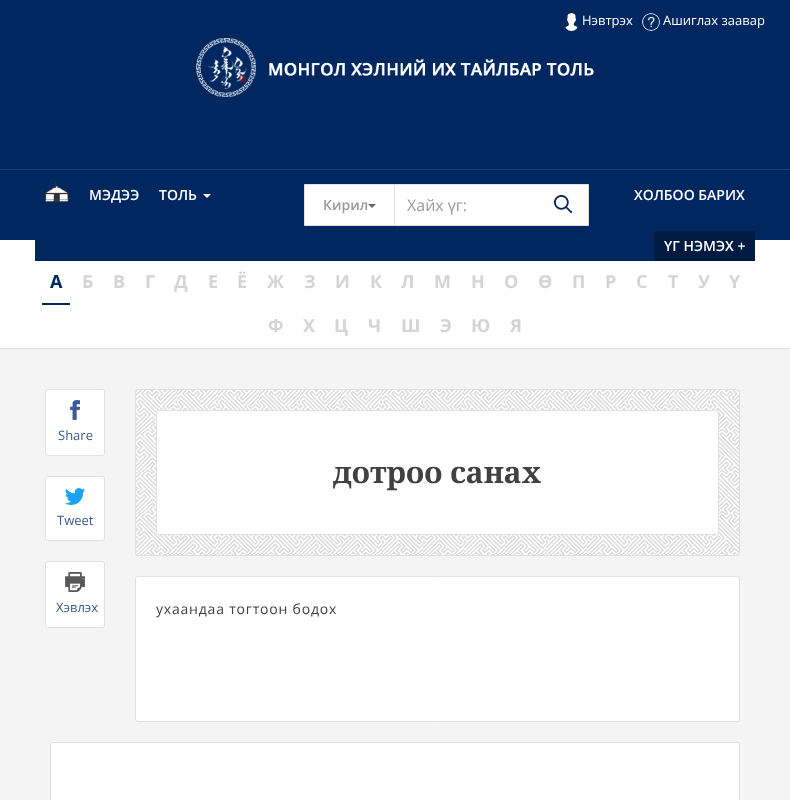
async function draw(canvas) {
  canvas.width = 790
  canvas.height = 800
  const ctx = canvas.getContext('2d')
  ctx.miterLimit = 4
  ctx.fontKerning = 'normal'
  async function loadImage(src) {
    const img = new Image()
    img.src = src
    await img.decode()
    return img
  }

  ctx.fillStyle = '#fff'
  ctx.fillRect(0, 0, 790, 800)
  ctx.fillStyle = '#002760'
  ctx.fillRect(0, 0, 790, 169)
  ctx.drawImage(await loadImage('image0.png'), 565, 13, 13, 18)
  ctx.font = '13px Open Sans'
  ctx.fillStyle = '#fff'
  ctx.fillText('Нэвтрэх', 582, 25)
  ctx.drawImage(await loadImage('image1.png'), 642, 13, 18, 18)
  ctx.fillText('Ашиглах заавар', 663, 25)
  ctx.fillStyle = '#1a3d70'
  ctx.fillRect(0, 169, 790, 1)
  ctx.drawImage(await loadImage('image2.png'), 196, 38, 398, 59)
  ctx.fillStyle = '#002760'
  ctx.fillRect(0, 170, 790, 70)
  ctx.fillRect(35, 240, 720, 21)
  ctx.drawImage(await loadImage('image3.png'), 45, 182, 24, 21)
  ctx.font = '600 14px Open Sans'
  ctx.fillStyle = '#fff'
  ctx.fillText('МЭДЭЭ', 89, 200)
  ctx.fillText('ТОЛЬ', 159, 200)
  ctx.beginPath()
  ctx.moveTo(203, 194)
  ctx.lineTo(211, 194)
  ctx.lineTo(207, 198)
  ctx.closePath()
  ctx.fill()
  ctx.fillText('ХОЛБОО БАРИХ', 634, 200)
  ctx.beginPath()
  ctx.rect(304.5, 184.5, 90, 41)
  ctx.fill()
  ctx.strokeStyle = '#e1e1e1'
  ctx.stroke()
  ctx.fillStyle = '#999'
  ctx.fillText('Кирил', 323, 210)
  ctx.fillStyle = '#666'
  ctx.beginPath()
  ctx.moveTo(368, 204)
  ctx.lineTo(376, 204)
  ctx.lineTo(372, 208)
  ctx.closePath()
  ctx.fill()
  ctx.fillStyle = '#fff'
  ctx.beginPath()
  ctx.rect(394.5, 184.5, 194, 41)
  ctx.fill()
  ctx.stroke()
  ctx.font = '16px Open Sans'
  ctx.fillStyle = '#999'
  ctx.fillText('Хайх үг:', 407, 211)
  ctx.drawImage(await loadImage('image4.png'), 554, 195, 18, 18)
  ctx.fillStyle = '#001a41'
  ctx.fillRect(654, 231, 101, 30)
  ctx.font = '600 14px Open Sans'
  ctx.fillStyle = '#fff'
  ctx.fillText('ҮГ НЭМЭХ +', 664, 251)
  ctx.fillStyle = '#002760'
  ctx.fillRect(42, 303, 28, 2)
  ctx.font = 'bold 18px Open Sans'
  ctx.fillText('А', 50, 288)
  ctx.fillStyle = '#d4d4d4'
  ctx.fillText('Б', 82, 288)
  ctx.fillText('В', 113, 288)
  ctx.fillText('Г', 145, 288)
  ctx.fillText('Д', 174, 288)
  ctx.fillText('Е', 208, 288)
  ctx.fillText('Ё', 237, 288)
  ctx.fillText('Ж', 267, 288)
  ctx.fillText('З', 304, 288)
  ctx.fillText('И', 335, 288)
  ctx.fillText('К', 370, 288)
  ctx.fillText('Л', 401, 288)
  ctx.fillText('М', 434, 288)
  ctx.fillText('Н', 471, 288)
  ctx.fillText('О', 504, 288)
  ctx.fillText('Ө', 538, 288)
  ctx.fillText('П', 572, 288)
  ctx.fillText('Р', 605, 288)
  ctx.fillText('С', 636, 288)
  ctx.fillText('Т', 668, 288)
  ctx.fillText('У', 698, 288)
  ctx.fillText('Ү', 729, 288)
  ctx.fillText('Ф', 268, 332)
  ctx.fillText('Х', 303, 332)
  ctx.fillText('Ц', 334, 332)
  ctx.fillText('Ч', 368, 332)
  ctx.fillText('Ш', 401, 332)
  ctx.fillText('Э', 440, 332)
  ctx.fillText('Ю', 471, 332)
  ctx.fillText('Я', 510, 332)
  ctx.fillStyle = '#f4f4f4'
  ctx.fillRect(0, 349, 790, 451)
  ctx.fillStyle = '#e1e1e1'
  ctx.fillRect(0, 348, 790, 1)
  ctx.fillStyle = '#fff'
  ctx.beginPath()
  ctx.roundRect(45.5, 389.5, 59, 66, 2.5)
  ctx.fill()
  ctx.stroke()
  ctx.drawImage(await loadImage('image5.png'), 70, 400, 10, 20)
  ctx.font = '13px Open Sans'
  ctx.fillStyle = '#385c8e'
  ctx.fillText('Share', 58, 440)
  ctx.fillStyle = '#fff'
  ctx.beginPath()
  ctx.roundRect(45.5, 476.5, 59, 64, 2.5)
  ctx.fill()
  ctx.stroke()
  ctx.drawImage(await loadImage('image6.png'), 65, 488, 20, 17)
  ctx.fillStyle = '#385c8e'
  ctx.fillText('Tweet', 57, 525)
  ctx.fillStyle = '#fff'
  ctx.beginPath()
  ctx.roundRect(45.5, 561.5, 59, 66, 2.5)
  ctx.fill()
  ctx.stroke()
  ctx.drawImage(await loadImage('image7.png'), 65, 572, 20, 20)
  ctx.fillStyle = '#385c8e'
  ctx.fillText('Хэвлэх', 56, 612)
  ctx.drawImage(await loadImage('image8.png'), 135, 389, 605, 167)
  ctx.beginPath()
  ctx.roundRect(135.5, 389.5, 604, 166, 2.5)
  ctx.stroke()
  ctx.fillStyle = '#fff'
  ctx.beginPath()
  ctx.roundRect(156.5, 410.5, 562, 124, 2.5)
  ctx.fill()
  ctx.stroke()
  ctx.font = 'bold 30px Noto Serif'
  ctx.fillStyle = '#414141'
  ctx.fillText('дотроо санах', 333, 483)
  ctx.fillStyle = '#fff'
  ctx.beginPath()
  ctx.roundRect(135.5, 576.5, 604, 145, 2.5)
  ctx.fill()
  ctx.stroke()
  ctx.letterSpacing = '0.8px'
  ctx.font = '14px Open Sans'
  ctx.fillStyle = '#414141'
  ctx.fillText('ухаандаа тогтоон бодох', 156, 614)
  ctx.fillStyle = '#fff'
  ctx.beginPath()
  ctx.roundRect(50.5, 742.5, 689, 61, 2.5)
  ctx.fill()
  ctx.stroke()
}

draw(document.querySelector('canvas'))
